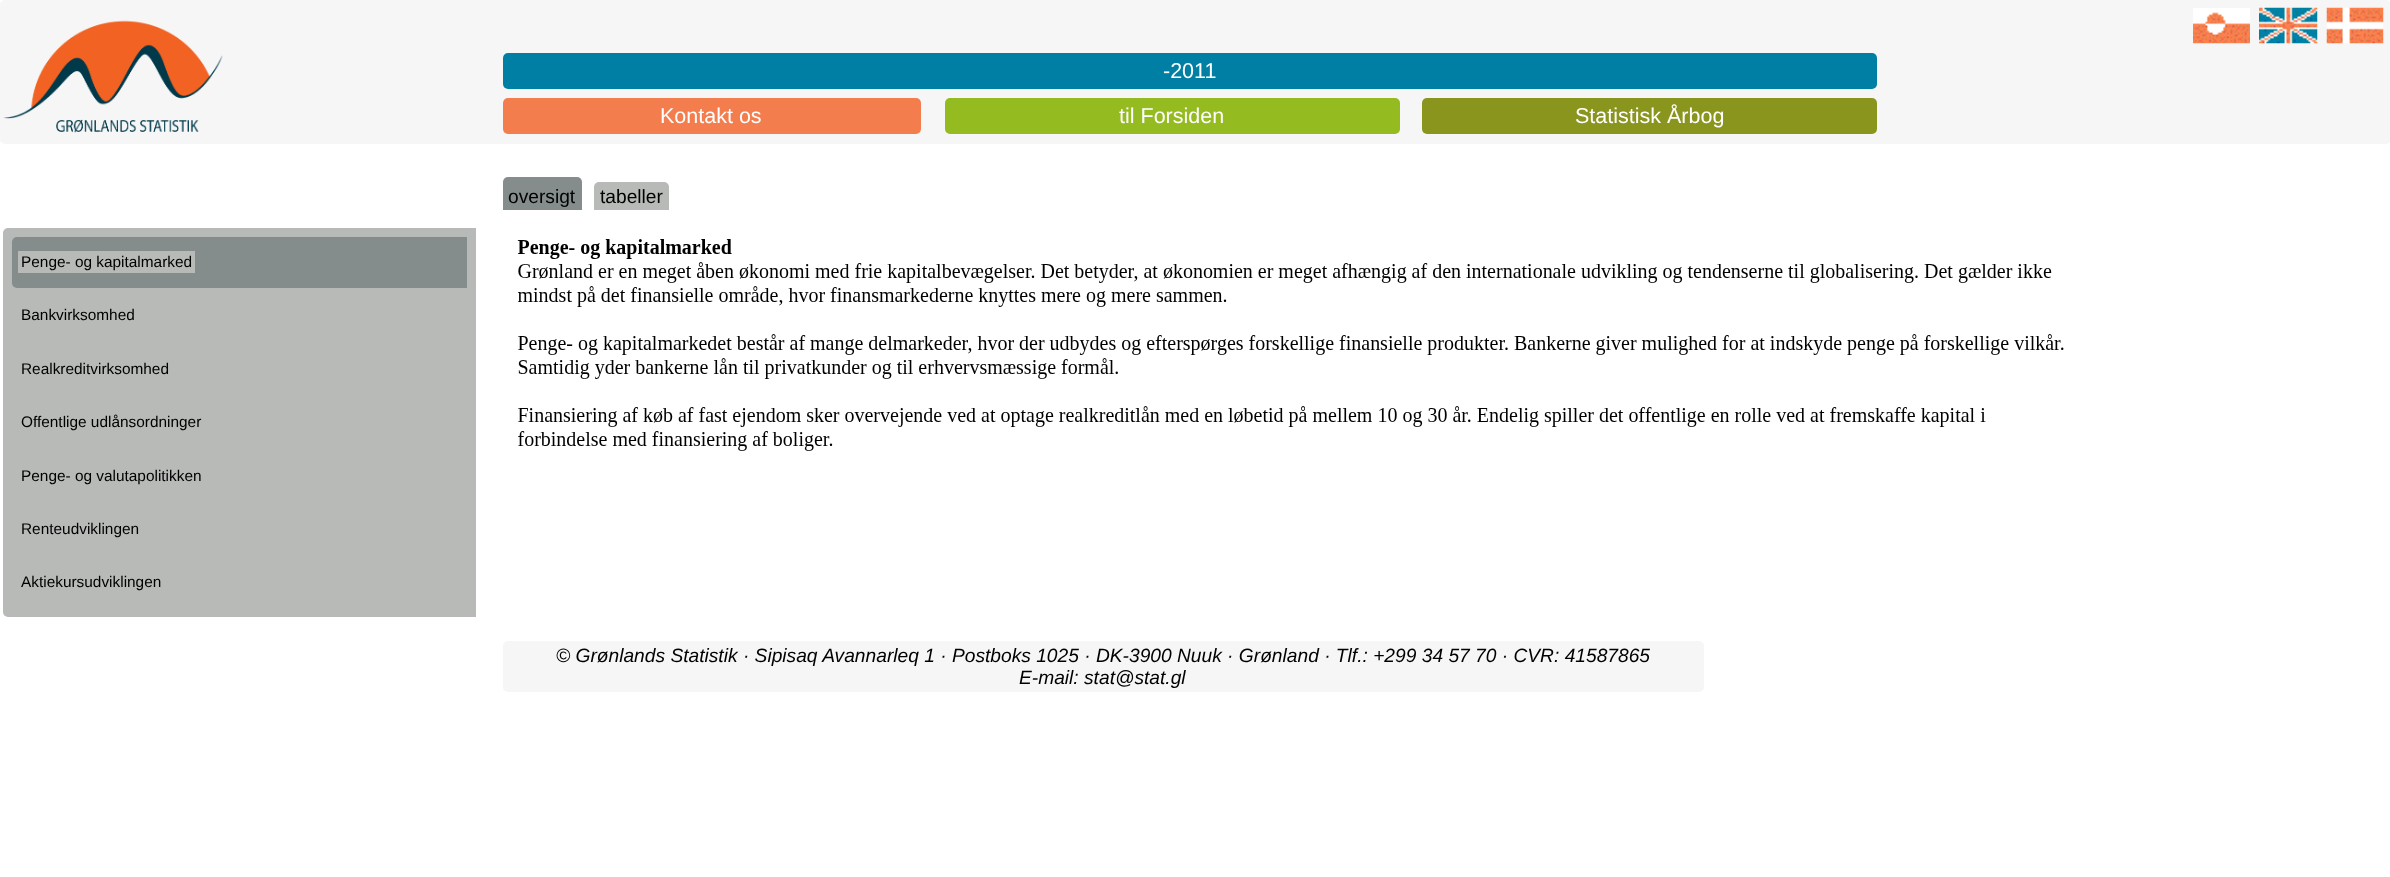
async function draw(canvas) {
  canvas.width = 2390
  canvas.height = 877
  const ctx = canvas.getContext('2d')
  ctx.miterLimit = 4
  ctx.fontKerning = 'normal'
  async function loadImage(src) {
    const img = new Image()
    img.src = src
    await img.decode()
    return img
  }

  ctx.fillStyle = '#fff'
  ctx.fillRect(0, 0, 2390, 877)
  ctx.fillStyle = '#f6f6f7'
  ctx.beginPath()
  ctx.roundRect(0, 0, 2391, 144, 5)
  ctx.fill()
  ctx.drawImage(await loadImage('image0.png'), 3, 20, 220, 113)
  ctx.fillStyle = '#007fa4'
  ctx.beginPath()
  ctx.roundRect(503, 53, 1374, 36, 5)
  ctx.fill()
  ctx.font = '21.5px Liberation Sans'
  ctx.fillStyle = '#fff'
  ctx.fillText('-2011', 1163, 78)
  ctx.fillStyle = '#f47d4d'
  ctx.beginPath()
  ctx.roundRect(503, 98, 418, 36, 5)
  ctx.fill()
  ctx.fillStyle = '#fff'
  ctx.fillText('Kontakt os', 660, 123)
  ctx.fillStyle = '#94bb1f'
  ctx.beginPath()
  ctx.roundRect(945, 98, 455, 36, 5)
  ctx.fill()
  ctx.fillStyle = '#fff'
  ctx.fillText('til Forsiden', 1119, 123)
  ctx.fillStyle = '#8a951e'
  ctx.beginPath()
  ctx.roundRect(1422, 98, 455, 36, 5)
  ctx.fill()
  ctx.fillStyle = '#fff'
  ctx.fillText('Statistisk Årbog', 1575, 123)
  ctx.drawImage(await loadImage('image1.png'), 2193, 8, 57, 36)
  ctx.drawImage(await loadImage('image2.png'), 2259, 7, 59, 37)
  ctx.drawImage(await loadImage('image3.png'), 2326, 7, 58, 37)
  ctx.fillStyle = '#848c8c'
  ctx.beginPath()
  ctx.roundRect(503, 177, 79, 33, [5, 5, 0, 0])
  ctx.fill()
  ctx.font = '19.2px Liberation Sans'
  ctx.fillStyle = '#000'
  ctx.fillText('oversigt', 508, 203)
  ctx.fillStyle = '#b8bab8'
  ctx.beginPath()
  ctx.roundRect(594, 182, 75, 28, [5, 5, 0, 0])
  ctx.fill()
  ctx.fillStyle = '#000'
  ctx.fillText('tabeller', 600, 203)
  ctx.fillStyle = '#b8bab8'
  ctx.beginPath()
  ctx.roundRect(3, 228, 473, 389, [5, 0, 0, 5])
  ctx.fill()
  ctx.fillStyle = '#848c8c'
  ctx.beginPath()
  ctx.roundRect(12, 237, 455, 51, [5, 0, 0, 5])
  ctx.fill()
  ctx.fillStyle = '#b8bab8'
  ctx.fillRect(18, 251, 177, 22)
  ctx.font = '15.4px Liberation Sans'
  ctx.fillStyle = '#000'
  ctx.fillText('Penge- og kapitalmarked', 21, 267)
  ctx.fillText('Bankvirksomhed', 21, 320)
  ctx.fillText('Realkreditvirksomhed', 21, 374)
  ctx.fillText('Offentlige udlånsordninger', 21, 427)
  ctx.fillText('Penge- og valutapolitikken', 21, 481)
  ctx.fillText('Renteudviklingen', 21, 534)
  ctx.fillText('Aktiekursudviklingen', 21, 587)
  ctx.drawImage(await loadImage('image4.png'), 517, 239, 1547, 212)
  ctx.fillStyle = '#f6f6f7'
  ctx.beginPath()
  ctx.roundRect(503, 641, 1201, 51, 5)
  ctx.fill()
  ctx.font = 'italic 19.2px Liberation Sans'
  ctx.fillStyle = '#000'
  ctx.fillText('© Grønlands Statistik · Sipisaq Avannarleq 1 · Postboks 1025 · DK-3900 Nuuk · Grønland · Tlf.: +299 34 57 70 · CVR: 41587865', 556, 662)
  ctx.fillText('E-mail: stat@stat.gl', 1019, 684)
}

draw(document.querySelector('canvas'))
